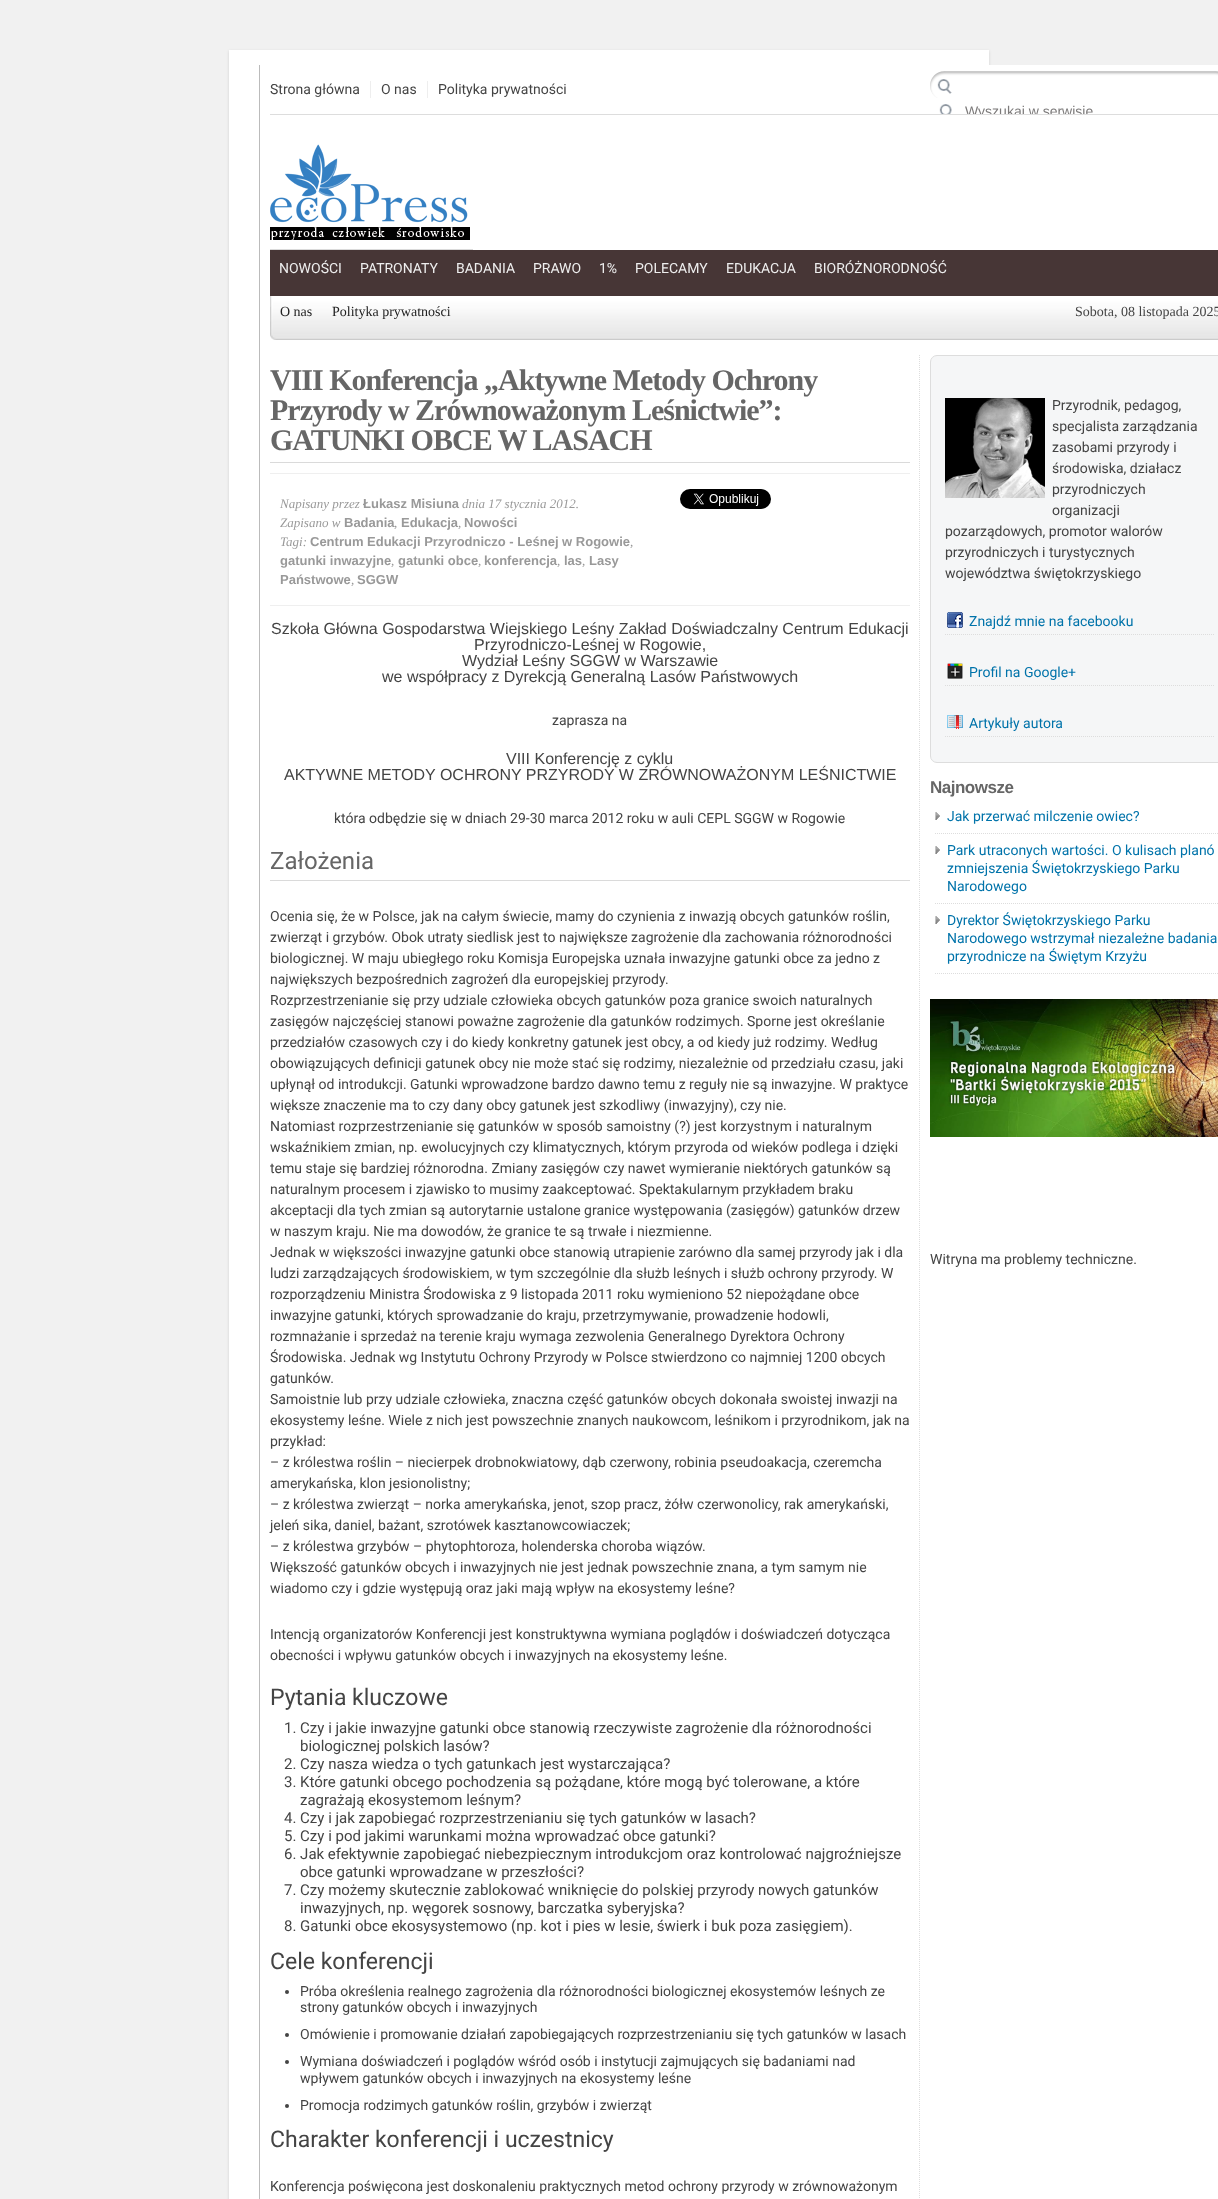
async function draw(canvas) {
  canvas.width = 1218
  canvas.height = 2199
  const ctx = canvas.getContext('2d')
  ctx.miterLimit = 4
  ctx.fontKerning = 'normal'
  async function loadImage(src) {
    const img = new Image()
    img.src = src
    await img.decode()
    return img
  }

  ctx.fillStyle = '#f1f1f1'
  ctx.fillRect(0, 0, 1218, 2199)
  ctx.fillStyle = '#00000021'
  ctx.filter = 'blur(1.5px)'
  ctx.beginPath()
  ctx.rect(229, 51, 760, 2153)
  ctx.fill()
  ctx.filter = 'none'
  ctx.fillStyle = '#fff'
  ctx.fillRect(229, 50, 760, 2149)
  ctx.fillRect(989, 65, 229, 2134)
  ctx.fillStyle = '#bbb'
  ctx.fillRect(259, 65, 1, 2134)
  ctx.fillStyle = '#ddd'
  ctx.fillRect(270, 114, 948, 1)
  ctx.font = '14px Roboto'
  ctx.fillStyle = '#444'
  ctx.fillText('Strona główna', 270, 94)
  ctx.fillStyle = '#eee'
  ctx.fillRect(370, 81, 1, 17)
  ctx.fillStyle = '#444'
  ctx.fillText('O nas', 381, 94)
  ctx.fillStyle = '#eee'
  ctx.fillRect(427, 81, 1, 17)
  ctx.fillStyle = '#444'
  ctx.fillText('Polityka prywatności', 438, 94)
  ctx.drawImage(await loadImage('image0.png'), 930, 71, 288, 27)
  ctx.drawImage(await loadImage('image1.png'), 939, 104, 13, 10)
  ctx.save()
  ctx.beginPath()
  ctx.rect(965, 103, 225, 11)
  ctx.clip()
  ctx.font = '14px Liberation Sans'
  ctx.fillStyle = '#7c7a7a'
  ctx.fillText('Wyszukaj w serwisie', 965, 116)
  ctx.restore()
  ctx.fillStyle = '#dadada'
  ctx.fillRect(270, 249, 203, 1)
  ctx.drawImage(await loadImage('image2.png'), 270, 144, 200, 96)
  ctx.fillStyle = '#473636'
  ctx.fillRect(270, 250, 948, 46)
  ctx.fillStyle = '#eee'
  ctx.fillText('NOWOŚCI', 279, 273)
  ctx.fillText('PATRONATY', 360, 273)
  ctx.fillText('BADANIA', 456, 273)
  ctx.fillText('PRAWO', 533, 273)
  ctx.fillText('1%', 599, 273)
  ctx.fillText('POLECAMY', 635, 273)
  ctx.fillText('EDUKACJA', 726, 273)
  ctx.fillText('BIORÓŻNORODNOŚĆ', 814, 273)
  ctx.drawImage(await loadImage('image3.png'), 270, 296, 948, 44)
  ctx.font = '14px Liberation Serif'
  ctx.fillStyle = '#222'
  ctx.fillText('O nas', 280, 316)
  ctx.fillText('Polityka prywatności', 332, 316)
  ctx.fillStyle = '#444'
  ctx.fillText('Sobota, 08 listopada 2025', 1075, 316)
  ctx.beginPath()
  ctx.moveTo(919.5, 355)
  ctx.lineTo(919.5, 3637)
  ctx.strokeStyle = '#ddd'
  ctx.setLineDash([1, 1])
  ctx.stroke()
  ctx.fillStyle = '#dadada'
  ctx.fillRect(270, 462, 640, 1)
  ctx.letterSpacing = '-1px'
  ctx.font = 'bold 30px Liberation Serif'
  ctx.fillStyle = '#666'
  ctx.fillText('VIII Konferencja „Aktywne Metody Ochrony', 270, 390)
  ctx.fillText('Przyrody w Zrównoważonym Leśnictwie”:', 270, 420)
  ctx.fillText('GATUNKI OBCE W LASACH', 270, 450)
  ctx.fillStyle = '#efefef'
  ctx.fillRect(270, 473, 640, 1)
  ctx.fillRect(270, 605, 640, 1)
  ctx.letterSpacing = '0px'
  ctx.font = 'italic 13px Liberation Serif'
  ctx.fillStyle = '#999'
  ctx.fillText('Napisany przez', 280, 508)
  ctx.font = 'bold 13px Liberation Sans'
  ctx.fillText('Łukasz Misiuna', 363, 508)
  ctx.font = 'italic 13px Liberation Serif'
  ctx.fillText('dnia 17 stycznia 2012.', 462, 508)
  ctx.fillText('Zapisano w', 280, 527)
  ctx.font = 'bold 13px Liberation Sans'
  ctx.fillText('Badania', 344, 527)
  ctx.font = 'italic 13px Liberation Serif'
  ctx.fillText(',', 394, 527)
  ctx.font = 'bold 13px Liberation Sans'
  ctx.fillText('Edukacja', 401, 527)
  ctx.font = 'italic 13px Liberation Serif'
  ctx.fillText(',', 458, 527)
  ctx.font = 'bold 13px Liberation Sans'
  ctx.fillText('Nowości', 464, 527)
  ctx.font = 'italic 13px Liberation Serif'
  ctx.fillText('Tagi:', 280, 546)
  ctx.font = 'bold 13px Liberation Sans'
  ctx.fillText('Centrum Edukacji Przyrodniczo - Leśnej w Rogowie', 310, 546)
  ctx.font = 'italic 13px Liberation Serif'
  ctx.fillText(',', 630, 546)
  ctx.font = 'bold 13px Liberation Sans'
  ctx.fillText('gatunki inwazyjne', 280, 565)
  ctx.font = 'italic 13px Liberation Serif'
  ctx.fillText(',', 391, 565)
  ctx.font = 'bold 13px Liberation Sans'
  ctx.fillText('gatunki obce', 398, 565)
  ctx.font = 'italic 13px Liberation Serif'
  ctx.fillText(',', 478, 565)
  ctx.font = 'bold 13px Liberation Sans'
  ctx.fillText('konferencja', 484, 565)
  ctx.font = 'italic 13px Liberation Serif'
  ctx.fillText(',', 557, 565)
  ctx.font = 'bold 13px Liberation Sans'
  ctx.fillText('las', 564, 565)
  ctx.font = 'italic 13px Liberation Serif'
  ctx.fillText(',', 582, 565)
  ctx.font = 'bold 13px Liberation Sans'
  ctx.fillText('Lasy', 589, 565)
  ctx.fillText('Państwowe', 280, 584)
  ctx.font = 'italic 13px Liberation Serif'
  ctx.fillText(',', 351, 584)
  ctx.font = 'bold 13px Liberation Sans'
  ctx.fillText('SGGW', 357, 584)
  ctx.drawImage(await loadImage('image4.png'), 680, 489, 91, 20)
  ctx.font = '16px Liberation Sans'
  ctx.fillStyle = '#444'
  ctx.fillText('Szkoła Główna Gospodarstwa Wiejskiego Leśny Zakład Doświadczalny Centrum Edukacji', 271, 634)
  ctx.fillText('Przyrodniczo-Leśnej w Rogowie,', 474, 650)
  ctx.fillText('Wydział Leśny SGGW w Warszawie', 462, 666)
  ctx.fillText('we współpracy z Dyrekcją Generalną Lasów Państwowych', 382, 682)
  ctx.font = '14px Roboto'
  ctx.fillText('zaprasza na', 552, 725)
  ctx.font = '16px Liberation Sans'
  ctx.fillText('VIII Konferencję z cyklu', 506, 764)
  ctx.fillText('AKTYWNE METODY OCHRONY PRZYRODY W ZRÓWNOWAŻONYM LEŚNICTWIE', 284, 780)
  ctx.font = '14px Roboto'
  ctx.fillText('która odbędzie się w dniach 29-30 marca 2012 roku w auli CEPL SGGW w Rogowie', 334, 823)
  ctx.fillStyle = '#dadada'
  ctx.fillRect(270, 880, 640, 1)
  ctx.font = '24px Roboto'
  ctx.fillStyle = '#666'
  ctx.fillText('Założenia', 270, 869)
  ctx.font = '14px Roboto'
  ctx.fillStyle = '#444'
  ctx.fillText('Ocenia się, że w Polsce, jak na całym świecie, mamy do czynienia z inwazją obcych gatunków roślin,', 270, 921)
  ctx.fillText('zwierząt i grzybów. Obok utraty siedlisk jest to największe zagrożenie dla zachowania różnorodności', 270, 942)
  ctx.fillText('biologicznej. W maju ubiegłego roku Komisja Europejska uznała inwazyjne gatunki obce za jedno z', 270, 963)
  ctx.fillText('największych bezpośrednich zagrożeń dla europejskiej przyrody.', 270, 984)
  ctx.fillText('Rozprzestrzenianie się przy udziale człowieka obcych gatunków poza granice swoich naturalnych', 270, 1005)
  ctx.fillText('zasięgów najczęściej stanowi poważne zagrożenie dla gatunków rodzimych. Sporne jest określanie', 270, 1026)
  ctx.fillText('przedziałów czasowych czy i do kiedy konkretny gatunek jest obcy, a od kiedy już rodzimy. Według', 270, 1047)
  ctx.fillText('obowiązujących definicji gatunek obcy nie może stać się rodzimy, niezależnie od przedziału czasu, jaki', 270, 1068)
  ctx.fillText('upłynął od introdukcji. Gatunki wprowadzone bardzo dawno temu z reguły nie są inwazyjne. W praktyce', 270, 1089)
  ctx.fillText('większe znaczenie ma to czy dany obcy gatunek jest szkodliwy (inwazyjny), czy nie.', 270, 1110)
  ctx.fillText('Natomiast rozprzestrzenianie się gatunków w sposób samoistny (?) jest korzystnym i naturalnym', 270, 1131)
  ctx.fillText('wskaźnikiem zmian, np. ewolucyjnych czy klimatycznych, którym przyroda od wieków podlega i dzięki', 270, 1152)
  ctx.fillText('temu staje się bardziej różnorodna. Zmiany zasięgów czy nawet wymieranie niektórych gatunków są', 270, 1173)
  ctx.fillText('naturalnym procesem i zjawisko to musimy zaakceptować. Spektakularnym przykładem braku', 270, 1194)
  ctx.fillText('akceptacji dla tych zmian są autorytarnie ustalone granice występowania (zasięgów) gatunków drzew', 270, 1215)
  ctx.fillText('w naszym kraju. Nie ma dowodów, że granice te są trwałe i niezmienne.', 270, 1236)
  ctx.fillText('Jednak w większości inwazyjne gatunki obce stanowią utrapienie zarówno dla samej przyrody jak i dla', 270, 1257)
  ctx.fillText('ludzi zarządzających środowiskiem, w tym szczególnie dla służb leśnych i służb ochrony przyrody. W', 270, 1278)
  ctx.fillText('rozporządzeniu Ministra Środowiska z 9 listopada 2011 roku wymieniono 52 niepożądane obce', 270, 1299)
  ctx.fillText('inwazyjne gatunki, których sprowadzanie do kraju, przetrzymywanie, prowadzenie hodowli,', 270, 1320)
  ctx.fillText('rozmnażanie i sprzedaż na terenie kraju wymaga zezwolenia Generalnego Dyrektora Ochrony', 270, 1341)
  ctx.fillText('Środowiska. Jednak wg Instytutu Ochrony Przyrody w Polsce stwierdzono co najmniej 1200 obcych', 270, 1362)
  ctx.fillText('gatunków.', 270, 1383)
  ctx.fillText('Samoistnie lub przy udziale człowieka, znaczna część gatunków obcych dokonała swoistej inwazji na', 270, 1404)
  ctx.fillText('ekosystemy leśne. Wiele z nich jest powszechnie znanych naukowcom, leśnikom i przyrodnikom, jak na', 270, 1425)
  ctx.fillText('przykład:', 270, 1446)
  ctx.fillText('– z królestwa roślin – niecierpek drobnokwiatowy, dąb czerwony, robinia pseudoakacja, czeremcha', 270, 1467)
  ctx.fillText('amerykańska, klon jesionolistny;', 270, 1488)
  ctx.fillText('– z królestwa zwierząt – norka amerykańska, jenot, szop pracz, żółw czerwonolicy, rak amerykański,', 270, 1509)
  ctx.fillText('jeleń sika, daniel, bażant, szrotówek kasztanowcowiaczek;', 270, 1530)
  ctx.fillText('– z królestwa grzybów – phytophtoroza, holenderska choroba wiązów.', 270, 1551)
  ctx.fillText('Większość gatunków obcych i inwazyjnych nie jest jednak powszechnie znana, a tym samym nie', 270, 1572)
  ctx.fillText('wiadomo czy i gdzie występują oraz jaki mają wpływ na ekosystemy leśne?', 270, 1593)
  ctx.fillText('Intencją organizatorów Konferencji jest konstruktywna wymiana poglądów i doświadczeń dotycząca', 270, 1639)
  ctx.fillText('obecności i wpływu gatunków obcych i inwazyjnych na ekosystemy leśne.', 270, 1660)
  ctx.font = '23px Roboto'
  ctx.fillText('Pytania kluczowe', 270, 1705)
  ctx.font = '15px Roboto'
  ctx.fillText('1. Czy i jakie inwazyjne gatunki obce stanowią rzeczywiste zagrożenie dla różnorodności', 284, 1733)
  ctx.fillText('biologicznej polskich lasów?', 300, 1751)
  ctx.fillText('2. Czy nasza wiedza o tych gatunkach jest wystarczająca?', 284, 1769)
  ctx.fillText('3. Które gatunki obcego pochodzenia są pożądane, które mogą być tolerowane, a które', 284, 1787)
  ctx.fillText('zagrażają ekosystemom leśnym?', 300, 1805)
  ctx.fillText('4. Czy i jak zapobiegać rozprzestrzenianiu się tych gatunków w lasach?', 284, 1823)
  ctx.fillText('5. Czy i pod jakimi warunkami można wprowadzać obce gatunki?', 284, 1841)
  ctx.fillText('6. Jak efektywnie zapobiegać niebezpiecznym introdukcjom oraz kontrolować najgroźniejsze', 284, 1859)
  ctx.fillText('obce gatunki wprowadzane w przeszłości?', 300, 1877)
  ctx.fillText('7. Czy możemy skutecznie zablokować wniknięcie do polskiej przyrody nowych gatunków', 284, 1895)
  ctx.fillText('inwazyjnych, np. węgorek sosnowy, barczatka syberyjska?', 300, 1913)
  ctx.fillText('8. Gatunki obce ekosysystemowo (np. kot i pies w lesie, świerk i buk poza zasięgiem).', 284, 1931)
  ctx.font = '23px Roboto'
  ctx.fillText('Cele konferencji', 270, 1969)
  ctx.beginPath()
  ctx.arc(287, 1992, 2, 0, 2 * Math.PI)
  ctx.fill()
  ctx.font = '14px Roboto'
  ctx.fillText('Próba określenia realnego zagrożenia dla różnorodności biologicznej ekosystemów leśnych ze', 300, 1996)
  ctx.fillText('strony gatunków obcych i inwazyjnych', 300, 2012)
  ctx.beginPath()
  ctx.arc(287, 2035, 2, 0, 2 * Math.PI)
  ctx.fill()
  ctx.fillText('Omówienie i promowanie działań zapobiegających rozprzestrzenianiu się tych gatunków w lasach', 300, 2039)
  ctx.beginPath()
  ctx.arc(287, 2062, 2, 0, 2 * Math.PI)
  ctx.fill()
  ctx.fillText('Wymiana doświadczeń i poglądów wśród osób i instytucji zajmujących się badaniami nad', 300, 2066)
  ctx.fillText('wpływem gatunków obcych i inwazyjnych na ekosystemy leśne', 300, 2083)
  ctx.beginPath()
  ctx.arc(287, 2106, 2, 0, 2 * Math.PI)
  ctx.fill()
  ctx.fillText('Promocja rodzimych gatunków roślin, grzybów i zwierząt', 300, 2110)
  ctx.font = '23px Roboto'
  ctx.fillText('Charakter konferencji i uczestnicy', 270, 2147)
  ctx.font = '14px Roboto'
  ctx.fillText('Konferencja poświęcona jest doskonaleniu praktycznych metod ochrony przyrody w zrównoważonym', 270, 2191)
  ctx.fillStyle = '#f5f6f7'
  ctx.beginPath()
  ctx.roundRect(930.5, 355.5, 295, 407, 6.5)
  ctx.fill()
  ctx.setLineDash([])
  ctx.stroke()
  ctx.drawImage(await loadImage('image5.png'), 945, 398, 100, 100)
  ctx.fillStyle = '#444'
  ctx.fillText('Przyrodnik, pedagog,', 1052, 410)
  ctx.fillText('specjalista zarządzania', 1052, 431)
  ctx.fillText('zasobami przyrody i', 1052, 452)
  ctx.fillText('środowiska, działacz', 1052, 473)
  ctx.fillText('przyrodniczych', 1052, 494)
  ctx.fillText('organizacji', 1052, 515)
  ctx.fillText('pozarządowych, promotor walorów', 945, 536)
  ctx.fillText('przyrodniczych i turystycznych', 945, 557)
  ctx.fillText('województwa świętokrzyskiego', 945, 578)
  ctx.drawImage(await loadImage('image6.png'), 947, 612, 16, 16)
  ctx.beginPath()
  ctx.moveTo(945, 634.5)
  ctx.lineTo(1215, 634.5)
  ctx.setLineDash([1, 1])
  ctx.stroke()
  ctx.fillStyle = '#0073aa'
  ctx.fillText('Znajdź mnie na facebooku', 969, 626)
  ctx.drawImage(await loadImage('image7.png'), 947, 663, 16, 16)
  ctx.beginPath()
  ctx.moveTo(945, 685.5)
  ctx.lineTo(1215, 685.5)
  ctx.stroke()
  ctx.fillText('Profil na Google+', 969, 677)
  ctx.drawImage(await loadImage('image8.png'), 947, 715, 16, 14)
  ctx.beginPath()
  ctx.moveTo(945, 736.5)
  ctx.lineTo(1215, 736.5)
  ctx.stroke()
  ctx.fillText('Artykuły autora', 969, 728)
  ctx.letterSpacing = '-0.5px'
  ctx.font = 'bold 17px Liberation Sans'
  ctx.fillStyle = '#666'
  ctx.fillText('Najnowsze', 930, 793)
  ctx.drawImage(await loadImage('image9.png'), 935, 812, 5, 8)
  ctx.beginPath()
  ctx.moveTo(935, 833.5)
  ctx.lineTo(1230, 833.5)
  ctx.stroke()
  ctx.letterSpacing = '0px'
  ctx.font = '14px Roboto'
  ctx.fillStyle = '#0073aa'
  ctx.fillText('Jak przerwać milczenie owiec?', 947, 821)
  ctx.drawImage(await loadImage('image9.png'), 935, 846, 5, 8)
  ctx.beginPath()
  ctx.moveTo(935, 903.5)
  ctx.lineTo(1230, 903.5)
  ctx.stroke()
  ctx.fillText('Park utraconych wartości. O kulisach planó', 947, 855)
  ctx.fillText('zmniejszenia Świętokrzyskiego Parku', 947, 873)
  ctx.fillText('Narodowego', 947, 891)
  ctx.drawImage(await loadImage('image9.png'), 935, 916, 5, 8)
  ctx.beginPath()
  ctx.moveTo(935, 973.5)
  ctx.lineTo(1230, 973.5)
  ctx.stroke()
  ctx.fillText('Dyrektor Świętokrzyskiego Parku', 947, 925)
  ctx.fillText('Narodowego wstrzymał niezależne badania', 947, 943)
  ctx.fillText('przyrodnicze na Świętym Krzyżu', 947, 961)
  ctx.drawImage(await loadImage('image10.png'), 930, 999, 288, 138)
  ctx.fillStyle = '#444'
  ctx.fillText('Witryna ma problemy techniczne.', 930, 1264)
}

draw(document.querySelector('canvas'))
